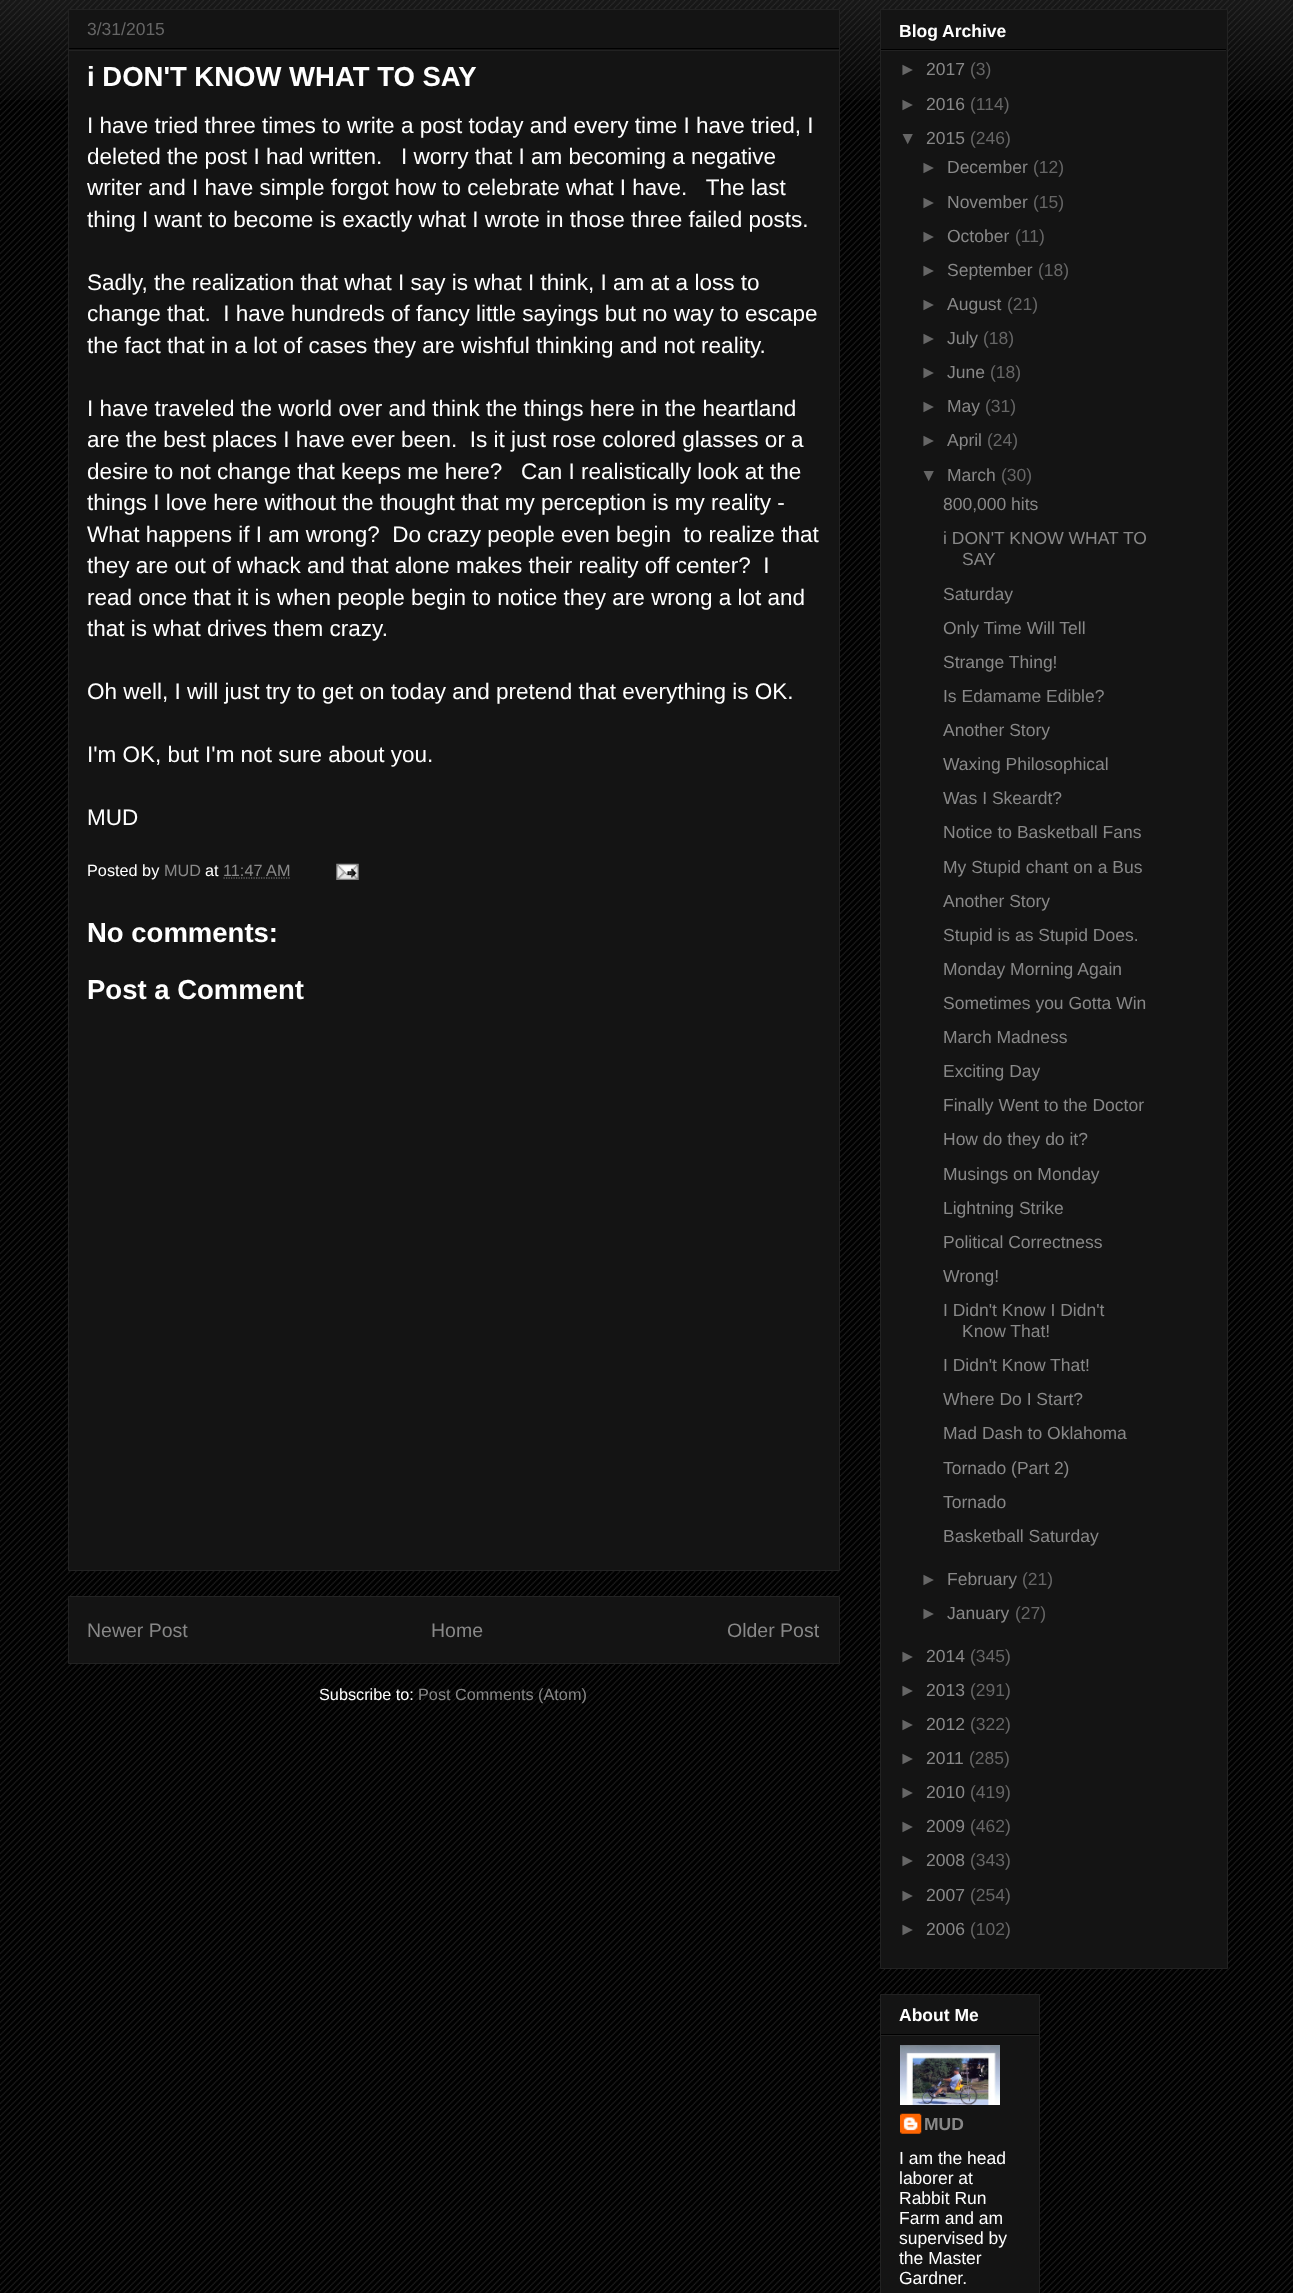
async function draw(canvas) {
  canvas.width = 1293
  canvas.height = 2293
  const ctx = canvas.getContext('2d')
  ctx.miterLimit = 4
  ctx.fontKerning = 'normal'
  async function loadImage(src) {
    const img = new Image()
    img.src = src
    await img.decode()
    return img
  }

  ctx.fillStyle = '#000'
  ctx.fillRect(0, 0, 1293, 2293)
  ctx.drawImage(await loadImage('image0.png'), 0, 0, 1293, 2293)
  ctx.drawImage(await loadImage('image1.png'), 0, 0, 1293, 100)
  ctx.fillStyle = '#141414'
  ctx.beginPath()
  ctx.rect(68.5, 9.5, 771, 1561)
  ctx.fill()
  ctx.strokeStyle = '#222'
  ctx.stroke()
  ctx.fillStyle = '#000'
  ctx.fillRect(69, 48, 770, 1)
  ctx.font = '17.5px Liberation Sans'
  ctx.fillStyle = '#666'
  ctx.fillText('3/31/2015', 87, 35)
  ctx.fillStyle = '#222'
  ctx.fillRect(69, 50, 770, 1)
  ctx.font = 'bold 27.5px Liberation Sans'
  ctx.fillStyle = '#fff'
  ctx.fillText('i DON\'T KNOW WHAT TO SAY', 87, 86)
  ctx.font = '22.5px Liberation Sans'
  ctx.fillText('I have tried three times to write a post today and every time I have tried, I', 87, 133)
  ctx.fillText('deleted the post I had written.   I worry that I am becoming a negative', 87, 164)
  ctx.fillText('writer and I have simple forgot how to celebrate what I have.   The last', 87, 195)
  ctx.fillText('thing I want to become is exactly what I wrote in those three failed posts.', 87, 227)
  ctx.fillText('Sadly, the realization that what I say is what I think, I am at a loss to', 87, 290)
  ctx.fillText('change that.  I have hundreds of fancy little sayings but no way to escape', 87, 321)
  ctx.fillText('the fact that in a lot of cases they are wishful thinking and not reality.', 87, 353)
  ctx.fillText('I have traveled the world over and think the things here in the heartland', 87, 416)
  ctx.fillText('are the best places I have ever been.  Is it just rose colored glasses or a', 87, 447)
  ctx.fillText('desire to not change that keeps me here?   Can I realistically look at the', 87, 479)
  ctx.fillText('things I love here without the thought that my perception is my reality -', 87, 510)
  ctx.fillText('What happens if I am wrong?  Do crazy people even begin  to realize that', 87, 542)
  ctx.fillText('they are out of whack and that alone makes their reality off center?  I', 87, 573)
  ctx.fillText('read once that it is when people begin to notice they are wrong a lot and', 87, 605)
  ctx.fillText('that is what drives them crazy.', 87, 636)
  ctx.fillText('Oh well, I will just try to get on today and pretend that everything is OK.', 87, 699)
  ctx.fillText('I\'m OK, but I\'m not sure about you.', 87, 762)
  ctx.fillText('MUD', 87, 825)
  ctx.font = '16.25px Liberation Sans'
  ctx.fillText('Posted by', 87, 876)
  ctx.fillStyle = '#888'
  ctx.fillText('MUD', 164, 876)
  ctx.fillStyle = '#fff'
  ctx.fillText('at', 205, 876)
  ctx.fillStyle = '#888'
  ctx.fillText('11:47 AM', 223, 876)
  ctx.beginPath()
  ctx.moveTo(223.5, 878)
  ctx.lineTo(291, 878)
  ctx.strokeStyle = '#888'
  ctx.lineWidth = 1.2
  ctx.setLineDash([1.25, 1.25])
  ctx.stroke()
  ctx.drawImage(await loadImage('image2.png'), 336, 863, 23, 17)
  ctx.font = 'bold 27.5px Liberation Sans'
  ctx.fillStyle = '#fff'
  ctx.fillText('No comments:', 87, 942)
  ctx.fillText('Post a Comment', 87, 999)
  ctx.fillStyle = '#141414'
  ctx.beginPath()
  ctx.rect(68.5, 1596.5, 771, 67)
  ctx.fill()
  ctx.strokeStyle = '#222'
  ctx.lineWidth = 1
  ctx.setLineDash([])
  ctx.stroke()
  ctx.font = '19.5px Liberation Sans'
  ctx.fillStyle = '#888'
  ctx.fillText('Newer Post', 87, 1637)
  ctx.fillText('Home', 431, 1637)
  ctx.fillText('Older Post', 727, 1637)
  ctx.font = '16.25px Liberation Sans'
  ctx.fillStyle = '#fff'
  ctx.fillText('Subscribe to:', 319, 1700)
  ctx.fillStyle = '#888'
  ctx.fillText('Post Comments (Atom)', 418, 1700)
  ctx.fillStyle = '#141414'
  ctx.beginPath()
  ctx.rect(880.5, 9.5, 347, 1959)
  ctx.fill()
  ctx.stroke()
  ctx.fillStyle = '#000'
  ctx.fillRect(881, 49, 345, 1)
  ctx.font = 'bold 17.5px Liberation Sans'
  ctx.fillStyle = '#fff'
  ctx.fillText('Blog Archive', 899, 37)
  ctx.fillStyle = '#222'
  ctx.fillRect(881, 50, 345, 1)
  ctx.font = '17.5px Liberation Sans'
  ctx.fillStyle = '#666'
  ctx.fillText('►', 899, 75)
  ctx.fillStyle = '#888'
  ctx.fillText('2017', 926, 75)
  ctx.fillStyle = '#666'
  ctx.fillText('(3)', 970, 75)
  ctx.fillText('►', 899, 110)
  ctx.fillStyle = '#888'
  ctx.fillText('2016', 926, 110)
  ctx.fillStyle = '#666'
  ctx.fillText('(114)', 970, 110)
  ctx.fillText('▼', 899, 144)
  ctx.fillStyle = '#888'
  ctx.fillText('2015', 926, 144)
  ctx.fillStyle = '#666'
  ctx.fillText('(246)', 970, 144)
  ctx.fillText('►', 920, 173)
  ctx.fillStyle = '#888'
  ctx.fillText('December', 947, 173)
  ctx.fillStyle = '#666'
  ctx.fillText('(12)', 1033, 173)
  ctx.fillText('►', 920, 208)
  ctx.fillStyle = '#888'
  ctx.fillText('November', 947, 208)
  ctx.fillStyle = '#666'
  ctx.fillText('(15)', 1033, 208)
  ctx.fillText('►', 920, 242)
  ctx.fillStyle = '#888'
  ctx.fillText('October', 947, 242)
  ctx.fillStyle = '#666'
  ctx.fillText('(11)', 1015, 242)
  ctx.fillText('►', 920, 276)
  ctx.fillStyle = '#888'
  ctx.fillText('September', 947, 276)
  ctx.fillStyle = '#666'
  ctx.fillText('(18)', 1038, 276)
  ctx.fillText('►', 920, 310)
  ctx.fillStyle = '#888'
  ctx.fillText('August', 947, 310)
  ctx.fillStyle = '#666'
  ctx.fillText('(21)', 1007, 310)
  ctx.fillText('►', 920, 344)
  ctx.fillStyle = '#888'
  ctx.fillText('July', 947, 344)
  ctx.fillStyle = '#666'
  ctx.fillText('(18)', 983, 344)
  ctx.fillText('►', 920, 378)
  ctx.fillStyle = '#888'
  ctx.fillText('June', 947, 378)
  ctx.fillStyle = '#666'
  ctx.fillText('(18)', 990, 378)
  ctx.fillText('►', 920, 412)
  ctx.fillStyle = '#888'
  ctx.fillText('May', 947, 412)
  ctx.fillStyle = '#666'
  ctx.fillText('(31)', 985, 412)
  ctx.fillText('►', 920, 446)
  ctx.fillStyle = '#888'
  ctx.fillText('April', 947, 446)
  ctx.fillStyle = '#666'
  ctx.fillText('(24)', 987, 446)
  ctx.fillText('▼', 920, 481)
  ctx.fillStyle = '#888'
  ctx.fillText('March', 947, 481)
  ctx.fillStyle = '#666'
  ctx.fillText('(30)', 1001, 481)
  ctx.fillStyle = '#888'
  ctx.fillText('800,000 hits', 943, 510)
  ctx.fillText('i DON\'T KNOW WHAT TO', 943, 544)
  ctx.fillText('SAY', 962, 565)
  ctx.fillText('Saturday', 943, 600)
  ctx.fillText('Only Time Will Tell', 943, 634)
  ctx.fillText('Strange Thing!', 943, 668)
  ctx.fillText('Is Edamame Edible?', 943, 702)
  ctx.fillText('Another Story', 943, 736)
  ctx.fillText('Waxing Philosophical', 943, 770)
  ctx.fillText('Was I Skeardt?', 943, 804)
  ctx.fillText('Notice to Basketball Fans', 943, 838)
  ctx.fillText('My Stupid chant on a Bus', 943, 873)
  ctx.fillText('Another Story', 943, 907)
  ctx.fillText('Stupid is as Stupid Does.', 943, 941)
  ctx.fillText('Monday Morning Again', 943, 975)
  ctx.fillText('Sometimes you Gotta Win', 943, 1009)
  ctx.fillText('March Madness', 943, 1043)
  ctx.fillText('Exciting Day', 943, 1077)
  ctx.fillText('Finally Went to the Doctor', 943, 1111)
  ctx.fillText('How do they do it?', 943, 1145)
  ctx.fillText('Musings on Monday', 943, 1180)
  ctx.fillText('Lightning Strike', 943, 1214)
  ctx.fillText('Political Correctness', 943, 1248)
  ctx.fillText('Wrong!', 943, 1282)
  ctx.fillText('I Didn\'t Know I Didn\'t', 943, 1316)
  ctx.fillText('Know That!', 962, 1337)
  ctx.fillText('I Didn\'t Know That!', 943, 1371)
  ctx.fillText('Where Do I Start?', 943, 1405)
  ctx.fillText('Mad Dash to Oklahoma', 943, 1439)
  ctx.fillText('Tornado (Part 2)', 943, 1474)
  ctx.fillText('Tornado', 943, 1508)
  ctx.fillText('Basketball Saturday', 943, 1542)
  ctx.fillStyle = '#666'
  ctx.fillText('►', 920, 1585)
  ctx.fillStyle = '#888'
  ctx.fillText('February', 947, 1585)
  ctx.fillStyle = '#666'
  ctx.fillText('(21)', 1022, 1585)
  ctx.fillText('►', 920, 1619)
  ctx.fillStyle = '#888'
  ctx.fillText('January', 947, 1619)
  ctx.fillStyle = '#666'
  ctx.fillText('(27)', 1015, 1619)
  ctx.fillText('►', 899, 1662)
  ctx.fillStyle = '#888'
  ctx.fillText('2014', 926, 1662)
  ctx.fillStyle = '#666'
  ctx.fillText('(345)', 970, 1662)
  ctx.fillText('►', 899, 1696)
  ctx.fillStyle = '#888'
  ctx.fillText('2013', 926, 1696)
  ctx.fillStyle = '#666'
  ctx.fillText('(291)', 970, 1696)
  ctx.fillText('►', 899, 1730)
  ctx.fillStyle = '#888'
  ctx.fillText('2012', 926, 1730)
  ctx.fillStyle = '#666'
  ctx.fillText('(322)', 970, 1730)
  ctx.fillText('►', 899, 1764)
  ctx.fillStyle = '#888'
  ctx.fillText('2011', 926, 1764)
  ctx.fillStyle = '#666'
  ctx.fillText('(285)', 969, 1764)
  ctx.fillText('►', 899, 1798)
  ctx.fillStyle = '#888'
  ctx.fillText('2010', 926, 1798)
  ctx.fillStyle = '#666'
  ctx.fillText('(419)', 970, 1798)
  ctx.fillText('►', 899, 1832)
  ctx.fillStyle = '#888'
  ctx.fillText('2009', 926, 1832)
  ctx.fillStyle = '#666'
  ctx.fillText('(462)', 970, 1832)
  ctx.fillText('►', 899, 1866)
  ctx.fillStyle = '#888'
  ctx.fillText('2008', 926, 1866)
  ctx.fillStyle = '#666'
  ctx.fillText('(343)', 970, 1866)
  ctx.fillText('►', 899, 1901)
  ctx.fillStyle = '#888'
  ctx.fillText('2007', 926, 1901)
  ctx.fillStyle = '#666'
  ctx.fillText('(254)', 970, 1901)
  ctx.fillText('►', 899, 1935)
  ctx.fillStyle = '#888'
  ctx.fillText('2006', 926, 1935)
  ctx.fillStyle = '#666'
  ctx.fillText('(102)', 970, 1935)
  ctx.fillStyle = '#141414'
  ctx.beginPath()
  ctx.rect(880.5, 1994.5, 159, 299)
  ctx.fill()
  ctx.stroke()
  ctx.fillStyle = '#000'
  ctx.fillRect(881, 2034, 158, 1)
  ctx.font = 'bold 17.5px Liberation Sans'
  ctx.fillStyle = '#fff'
  ctx.fillText('About Me', 899, 2021)
  ctx.fillStyle = '#222'
  ctx.fillRect(881, 2035, 158, 1)
  ctx.drawImage(await loadImage('image3.png'), 900, 2045, 100, 60)
  ctx.drawImage(await loadImage('image4.png'), 900, 2113, 22, 21)
  ctx.fillStyle = '#888'
  ctx.fillText('MUD', 924, 2130)
  ctx.font = '17.5px Liberation Sans'
  ctx.fillStyle = '#fff'
  ctx.fillText('I am the head', 899, 2164)
  ctx.fillText('laborer at', 899, 2184)
  ctx.fillText('Rabbit Run', 899, 2204)
  ctx.fillText('Farm and am', 899, 2224)
  ctx.fillText('supervised by', 899, 2244)
  ctx.fillText('the Master', 899, 2264)
  ctx.fillText('Gardner.', 899, 2284)
}

draw(document.querySelector('canvas'))
